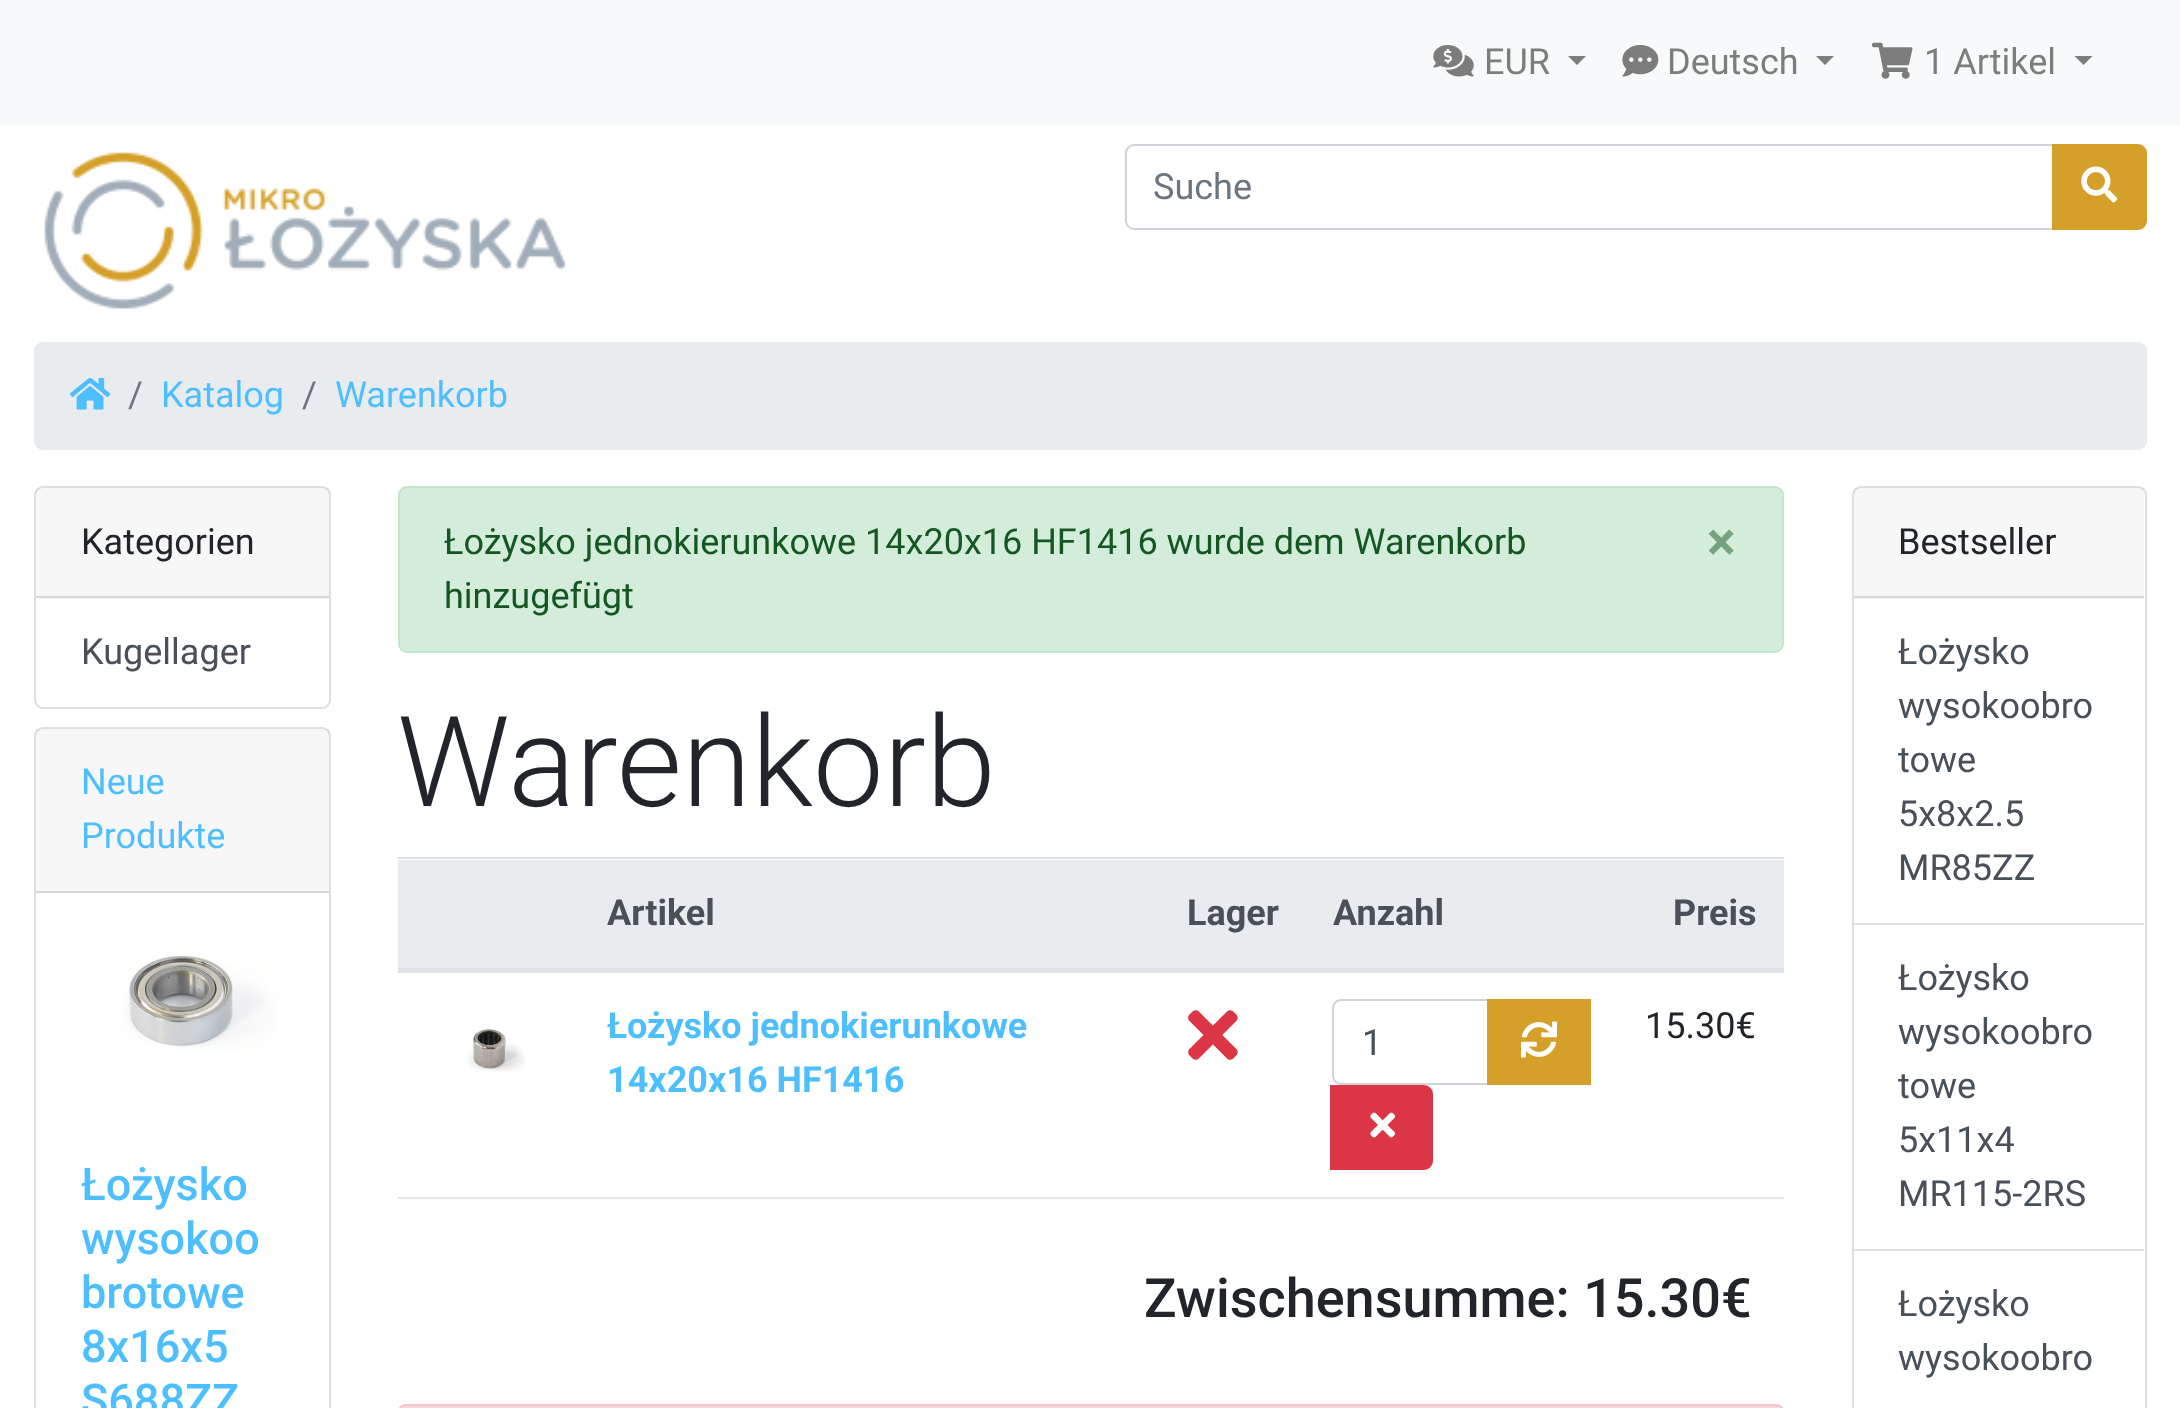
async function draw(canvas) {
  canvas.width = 2180
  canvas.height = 1408
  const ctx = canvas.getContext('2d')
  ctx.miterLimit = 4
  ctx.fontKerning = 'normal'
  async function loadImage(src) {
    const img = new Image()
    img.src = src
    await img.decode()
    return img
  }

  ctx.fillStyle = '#fff'
  ctx.fillRect(0, 0, 2180, 1408)
  ctx.fillStyle = '#f8f9fa'
  ctx.fillRect(0, 0, 2180, 126)
  ctx.drawImage(await loadImage('image0.png'), 1433, 45, 41, 32)
  ctx.font = '36px Roboto'
  ctx.fillStyle = '#7c7d7d'
  ctx.fillText('EUR', 1484, 74)
  ctx.beginPath()
  ctx.moveTo(1568, 56)
  ctx.lineTo(1586, 56)
  ctx.lineTo(1577, 65)
  ctx.closePath()
  ctx.fill()
  ctx.drawImage(await loadImage('image1.png'), 1622, 45, 37, 32)
  ctx.fillText('Deutsch', 1667, 74)
  ctx.beginPath()
  ctx.moveTo(1816, 56)
  ctx.lineTo(1834, 56)
  ctx.lineTo(1825, 65)
  ctx.closePath()
  ctx.fill()
  ctx.drawImage(await loadImage('image2.png'), 1872, 42, 41, 37)
  ctx.fillText('1 Artikel', 1924, 74)
  ctx.beginPath()
  ctx.moveTo(2074.5, 56)
  ctx.lineTo(2092.5, 56)
  ctx.lineTo(2083.5, 65)
  ctx.closePath()
  ctx.fill()
  ctx.drawImage(await loadImage('image3.png'), 44, 152, 522, 157)
  ctx.beginPath()
  ctx.roundRect(1126, 145, 927, 84, [8, 0, 0, 8])
  ctx.strokeStyle = '#ced4da'
  ctx.lineWidth = 2
  ctx.stroke()
  ctx.fillStyle = '#6c757d'
  ctx.fillText('Suche', 1153, 199)
  ctx.fillStyle = '#d5a029'
  ctx.beginPath()
  ctx.roundRect(2053, 145, 93, 84, [0, 8, 8, 0])
  ctx.fill()
  ctx.strokeStyle = '#d5a029'
  ctx.stroke()
  ctx.drawImage(await loadImage('image4.png'), 2081, 166, 37, 37)
  ctx.fillStyle = '#e9ecef'
  ctx.beginPath()
  ctx.roundRect(34, 342, 2113, 108, 9)
  ctx.fill()
  ctx.drawImage(await loadImage('image5.png'), 69, 378, 42, 32)
  ctx.fillStyle = '#6c757d'
  ctx.fillText('/', 128, 407)
  ctx.fillStyle = '#4ebffe'
  ctx.fillText('Katalog', 161, 407)
  ctx.fillStyle = '#6c757d'
  ctx.fillText('/', 302, 407)
  ctx.fillStyle = '#4ebffe'
  ctx.fillText('Warenkorb', 335, 407)
  ctx.beginPath()
  ctx.roundRect(35, 487, 295, 221, 8)
  ctx.strokeStyle = '#dfdfdf'
  ctx.stroke()
  ctx.fillStyle = '#00000008'
  ctx.fillRect(36, 488, 293, 111)
  ctx.fillStyle = '#d8d8d8'
  ctx.fillRect(36, 596, 293, 2)
  ctx.fillStyle = '#212529'
  ctx.fillText('Kategorien', 81, 554)
  ctx.fillStyle = '#495057'
  ctx.fillText('Kugellager', 81, 664)
  ctx.beginPath()
  ctx.roundRect(35, 728, 295, 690, 8)
  ctx.stroke()
  ctx.fillStyle = '#00000008'
  ctx.fillRect(36, 729, 293, 162)
  ctx.fillStyle = '#d8d8d8'
  ctx.fillRect(36, 891, 293, 2)
  ctx.fillStyle = '#4ebffe'
  ctx.fillText('Neue', 81, 794)
  ctx.fillText('Produkte', 81, 848)
  ctx.drawImage(await loadImage('image6.png'), 121, 954, 158, 97)
  ctx.font = '500 45px Roboto'
  ctx.fillText('Łożysko', 81, 1200)
  ctx.fillText('wysokoo', 81, 1254)
  ctx.fillText('brotowe', 81, 1308)
  ctx.fillText('8x16x5', 81, 1362)
  ctx.fillText('S688ZZ', 81, 1416)
  ctx.fillStyle = '#d4edda'
  ctx.beginPath()
  ctx.roundRect(399, 487, 1384, 165, 8)
  ctx.fill()
  ctx.strokeStyle = '#c3e6cb'
  ctx.stroke()
  ctx.font = '36px Roboto'
  ctx.fillStyle = '#155724'
  ctx.fillText('Łożysko jednokierunkowe 14x20x16 HF1416 wurde dem Warenkorb', 444, 554)
  ctx.font = 'bold 54px Roboto'
  ctx.fillStyle = '#75a27f'
  ctx.fillText('×', 1707, 560)
  ctx.font = '36px Roboto'
  ctx.fillStyle = '#155724'
  ctx.fillText('hinzugefügt', 444, 608)
  ctx.font = '300 126px Roboto'
  ctx.fillStyle = '#212529'
  ctx.fillText('Warenkorb', 397, 806)
  ctx.fillStyle = '#e9ecef'
  ctx.fillRect(398, 860, 1386, 108)
  ctx.font = 'bold 36px Roboto'
  ctx.fillStyle = '#495057'
  ctx.fillText('Artikel', 607, 925)
  ctx.fillText('Lager', 1187, 925)
  ctx.fillText('Anzahl', 1333, 925)
  ctx.fillStyle = '#dee2e6'
  ctx.fillRect(398, 857, 1386, 2)
  ctx.fillRect(398, 968, 1386, 5)
  ctx.fillStyle = '#495057'
  ctx.fillText('Preis', 1673, 925)
  ctx.fillStyle = '#4ebffe'
  ctx.fillText('Łożysko jednokierunkowe', 607, 1038)
  ctx.fillText('14x20x16 HF1416', 607, 1092)
  ctx.drawImage(await loadImage('image7.png'), 1188, 1010, 50, 50)
  ctx.font = '36px Roboto'
  ctx.fillStyle = '#212529'
  ctx.fillText('15.30€', 1645, 1038)
  ctx.drawImage(await loadImage('image8.png'), 467, 1029, 58, 44)
  ctx.beginPath()
  ctx.roundRect(1333, 1000, 156, 84, [8, 0, 0, 8])
  ctx.strokeStyle = '#ced4da'
  ctx.stroke()
  ctx.fillStyle = '#495057'
  ctx.fillText('1', 1362, 1055)
  ctx.fillStyle = '#d5a029'
  ctx.fillRect(1487, 999, 104, 86)
  ctx.drawImage(await loadImage('image9.png'), 1521, 1021, 36, 37)
  ctx.fillStyle = '#dc3545'
  ctx.beginPath()
  ctx.roundRect(1331, 1086, 101, 83, [0, 8, 8, 0])
  ctx.fill()
  ctx.strokeStyle = '#dc3545'
  ctx.stroke()
  ctx.drawImage(await loadImage('image10.png'), 1370, 1112, 26, 26)
  ctx.fillStyle = '#e6e6e6'
  ctx.fillRect(398, 1197, 1386, 2)
  ctx.font = '500 54px Roboto'
  ctx.fillStyle = '#212529'
  ctx.fillText('Zwischensumme: 15.30€', 1144, 1317)
  ctx.fillStyle = '#f8d7da'
  ctx.beginPath()
  ctx.roundRect(399, 1405, 1384, 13, 8)
  ctx.fill()
  ctx.strokeStyle = '#f5c6cb'
  ctx.stroke()
  ctx.beginPath()
  ctx.roundRect(1853, 487, 293, 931, 8)
  ctx.strokeStyle = '#dfdfdf'
  ctx.stroke()
  ctx.fillStyle = '#00000008'
  ctx.fillRect(1854, 488, 290, 111)
  ctx.fillStyle = '#d8d8d8'
  ctx.fillRect(1854, 596, 290, 2)
  ctx.font = '36px Roboto'
  ctx.fillStyle = '#212529'
  ctx.fillText('Bestseller', 1898, 554)
  ctx.fillStyle = '#dfdfdf'
  ctx.fillRect(1854, 923, 290, 2)
  ctx.fillStyle = '#495057'
  ctx.fillText('Łożysko', 1898, 664)
  ctx.fillText('wysokoobro', 1898, 718)
  ctx.fillText('towe', 1898, 772)
  ctx.fillText('5x8x2.5', 1898, 826)
  ctx.fillText('MR85ZZ', 1898, 880)
  ctx.fillStyle = '#dfdfdf'
  ctx.fillRect(1854, 1249, 290, 2)
  ctx.fillStyle = '#495057'
  ctx.fillText('Łożysko', 1898, 990)
  ctx.fillText('wysokoobro', 1898, 1044)
  ctx.fillText('towe', 1898, 1098)
  ctx.fillText('5x11x4', 1898, 1152)
  ctx.fillText('MR115-2RS', 1898, 1206)
  ctx.fillText('Łożysko', 1898, 1316)
  ctx.fillText('wysokoobro', 1898, 1370)
}

draw(document.querySelector('canvas'))
